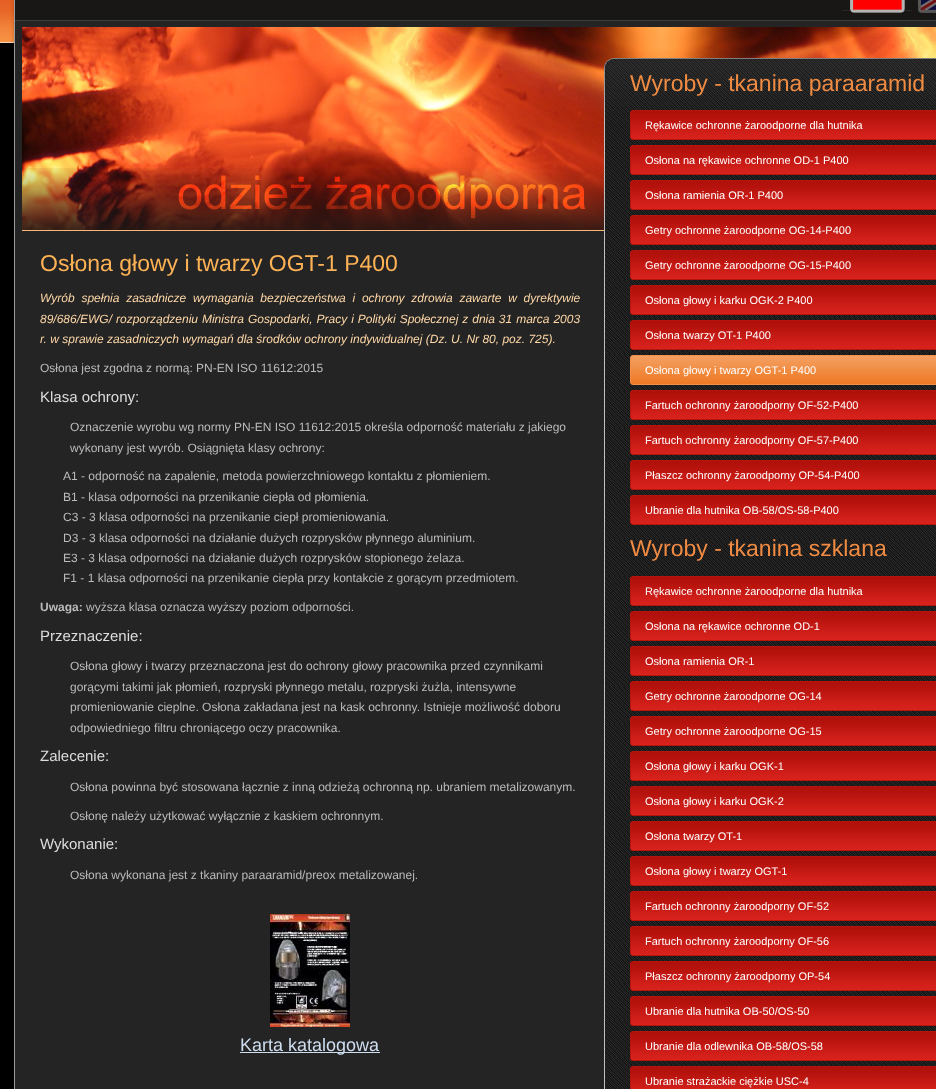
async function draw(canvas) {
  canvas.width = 936
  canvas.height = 1089
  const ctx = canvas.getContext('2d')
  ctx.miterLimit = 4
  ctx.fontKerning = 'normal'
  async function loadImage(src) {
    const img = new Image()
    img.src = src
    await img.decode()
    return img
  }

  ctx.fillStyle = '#fff'
  ctx.fillRect(0, 0, 936, 1089)
  ctx.drawImage(await loadImage('image0.png'), 0, 250, 936, 839)
  ctx.drawImage(await loadImage('image1.png'), 0, 0, 936, 250)
  ctx.drawImage(await loadImage('image2.png'), 842, 0, 70, 15)
  ctx.drawImage(await loadImage('image3.png'), 914, 0, 22, 17)
  ctx.font = '23px Liberation Sans'
  ctx.fillStyle = '#fdb255'
  ctx.fillText('Osłona głowy i twarzy OGT-1 P400', 40, 271)
  ctx.wordSpacing = '3.4px'
  ctx.font = 'italic 12px Liberation Sans'
  ctx.fillStyle = '#ffd8a8'
  ctx.fillText('Wyrób spełnia zasadnicze wymagania bezpieczeństwa i ochrony zdrowia zawarte w dyrektywie', 40, 302)
  ctx.wordSpacing = '0.6px'
  ctx.fillText('89/686/EWG/ rozporządzeniu Ministra Gospodarki, Pracy i Polityki Społecznej z dnia 31 marca 2003', 40, 323)
  ctx.wordSpacing = '0px'
  ctx.fillText('r. w sprawie zasadniczych wymagań dla środków ochrony indywidualnej (Dz. U. Nr 80, poz. 725).', 40, 343)
  ctx.font = '12px Liberation Sans'
  ctx.fillStyle = '#bbb'
  ctx.fillText('Osłona jest zgodna z normą: PN-EN ISO 11612:2015', 40, 372)
  ctx.font = '15px Liberation Sans'
  ctx.fillStyle = '#ddd'
  ctx.fillText('Klasa ochrony:', 40, 402)
  ctx.font = '12px Liberation Sans'
  ctx.fillStyle = '#bbb'
  ctx.fillText('Oznaczenie wyrobu wg normy PN-EN ISO 11612:2015 określa odporność materiału z jakiego', 70, 431)
  ctx.fillText('wykonany jest wyrób. Osiągnięta klasy ochrony:', 70, 452)
  ctx.fillText('A1 - odporność na zapalenie, metoda powierzchniowego kontaktu z płomieniem.', 63, 480)
  ctx.fillText('B1 - klasa odporności na przenikanie ciepła od płomienia.', 63, 501)
  ctx.fillText('C3 - 3 klasa odporności na przenikanie ciepł promieniowania.', 63, 521)
  ctx.fillText('D3 - 3 klasa odporności na działanie dużych rozprysków płynnego aluminium.', 63, 542)
  ctx.fillText('E3 - 3 klasa odporności na działanie dużych rozprysków stopionego żelaza.', 63, 562)
  ctx.fillText('F1 - 1 klasa odporności na przenikanie ciepła przy kontakcie z gorącym przedmiotem.', 63, 582)
  ctx.font = 'bold 12px Liberation Sans'
  ctx.fillText('Uwaga:', 40, 611)
  ctx.font = '12px Liberation Sans'
  ctx.fillText('wyższa klasa oznacza wyższy poziom odporności.', 86, 611)
  ctx.font = '15px Liberation Sans'
  ctx.fillStyle = '#ddd'
  ctx.fillText('Przeznaczenie:', 40, 641)
  ctx.font = '12px Liberation Sans'
  ctx.fillStyle = '#bbb'
  ctx.fillText('Osłona głowy i twarzy przeznaczona jest do ochrony głowy pracownika przed czynnikami', 70, 670)
  ctx.fillText('gorącymi takimi jak płomień, rozpryski płynnego metalu, rozpryski żużla, intensywne', 70, 691)
  ctx.fillText('promieniowanie cieplne. Osłona zakładana jest na kask ochronny. Istnieje możliwość doboru', 70, 711)
  ctx.fillText('odpowiedniego filtru chroniącego oczy pracownika.', 70, 732)
  ctx.font = '15px Liberation Sans'
  ctx.fillStyle = '#ddd'
  ctx.fillText('Zalecenie:', 40, 761)
  ctx.font = '12px Liberation Sans'
  ctx.fillStyle = '#bbb'
  ctx.fillText('Osłona powinna być stosowana łącznie z inną odzieżą ochronną np. ubraniem metalizowanym.', 70, 791)
  ctx.fillText('Osłonę należy użytkować wyłącznie z kaskiem ochronnym.', 70, 820)
  ctx.font = '15px Liberation Sans'
  ctx.fillStyle = '#ddd'
  ctx.fillText('Wykonanie:', 40, 849)
  ctx.font = '12px Liberation Sans'
  ctx.fillStyle = '#bbb'
  ctx.fillText('Osłona wykonana jest z tkaniny paraaramid/preox metalizowanej.', 70, 879)
  ctx.drawImage(await loadImage('image4.png'), 270, 914, 80, 113)
  ctx.fillStyle = '#ceddef'
  ctx.fillRect(240, 1052, 140, 1)
  ctx.font = '18px Liberation Sans'
  ctx.fillText('Karta katalogowa', 240, 1051)
  ctx.font = '23px Liberation Sans'
  ctx.fillStyle = '#ef8b42'
  ctx.fillText('Wyroby - tkanina paraaramid', 630, 91)
  ctx.drawImage(await loadImage('image5.png'), 630, 110, 295, 30)
  ctx.font = '11px Liberation Sans'
  ctx.fillStyle = '#fff'
  ctx.fillText('Rękawice ochronne żaroodporne dla hutnika', 645, 129)
  ctx.drawImage(await loadImage('image6.png'), 925, 110, 11, 30)
  ctx.drawImage(await loadImage('image7.png'), 630, 145, 295, 30)
  ctx.fillText('Osłona na rękawice ochronne OD-1 P400', 645, 164)
  ctx.drawImage(await loadImage('image6.png'), 925, 145, 11, 30)
  ctx.drawImage(await loadImage('image8.png'), 630, 180, 295, 30)
  ctx.fillText('Osłona ramienia OR-1 P400', 645, 199)
  ctx.drawImage(await loadImage('image6.png'), 925, 180, 11, 30)
  ctx.drawImage(await loadImage('image9.png'), 630, 215, 295, 30)
  ctx.fillText('Getry ochronne żaroodporne OG-14-P400', 645, 234)
  ctx.drawImage(await loadImage('image6.png'), 925, 215, 11, 30)
  ctx.drawImage(await loadImage('image10.png'), 630, 250, 295, 30)
  ctx.fillText('Getry ochronne żaroodporne OG-15-P400', 645, 269)
  ctx.drawImage(await loadImage('image6.png'), 925, 250, 11, 30)
  ctx.drawImage(await loadImage('image11.png'), 630, 285, 295, 30)
  ctx.fillText('Osłona głowy i karku OGK-2 P400', 645, 304)
  ctx.drawImage(await loadImage('image6.png'), 925, 285, 11, 30)
  ctx.drawImage(await loadImage('image12.png'), 630, 320, 295, 30)
  ctx.fillText('Osłona twarzy OT-1 P400', 645, 339)
  ctx.drawImage(await loadImage('image6.png'), 925, 320, 11, 30)
  ctx.drawImage(await loadImage('image13.png'), 630, 355, 295, 30)
  ctx.fillText('Osłona głowy i twarzy OGT-1 P400', 645, 374)
  ctx.drawImage(await loadImage('image14.png'), 925, 355, 11, 30)
  ctx.drawImage(await loadImage('image15.png'), 630, 390, 295, 30)
  ctx.fillText('Fartuch ochronny żaroodporny OF-52-P400', 645, 409)
  ctx.drawImage(await loadImage('image6.png'), 925, 390, 11, 30)
  ctx.drawImage(await loadImage('image16.png'), 630, 425, 295, 30)
  ctx.fillText('Fartuch ochronny żaroodporny OF-57-P400', 645, 444)
  ctx.drawImage(await loadImage('image6.png'), 925, 425, 11, 30)
  ctx.drawImage(await loadImage('image17.png'), 630, 460, 295, 30)
  ctx.fillText('Płaszcz ochronny żaroodporny OP-54-P400', 645, 479)
  ctx.drawImage(await loadImage('image6.png'), 925, 460, 11, 30)
  ctx.drawImage(await loadImage('image18.png'), 630, 495, 295, 30)
  ctx.fillText('Ubranie dla hutnika OB-58/OS-58-P400', 645, 514)
  ctx.drawImage(await loadImage('image6.png'), 925, 495, 11, 30)
  ctx.font = '23px Liberation Sans'
  ctx.fillStyle = '#ef8b42'
  ctx.fillText('Wyroby - tkanina szklana', 630, 556)
  ctx.drawImage(await loadImage('image19.png'), 630, 576, 295, 30)
  ctx.font = '11px Liberation Sans'
  ctx.fillStyle = '#fff'
  ctx.fillText('Rękawice ochronne żaroodporne dla hutnika', 645, 595)
  ctx.drawImage(await loadImage('image6.png'), 925, 576, 11, 30)
  ctx.drawImage(await loadImage('image20.png'), 630, 611, 295, 30)
  ctx.fillText('Osłona na rękawice ochronne OD-1', 645, 630)
  ctx.drawImage(await loadImage('image6.png'), 925, 611, 11, 30)
  ctx.drawImage(await loadImage('image21.png'), 630, 646, 295, 30)
  ctx.fillText('Osłona ramienia OR-1', 645, 665)
  ctx.drawImage(await loadImage('image6.png'), 925, 646, 11, 30)
  ctx.drawImage(await loadImage('image22.png'), 630, 681, 295, 30)
  ctx.fillText('Getry ochronne żaroodporne OG-14', 645, 700)
  ctx.drawImage(await loadImage('image6.png'), 925, 681, 11, 30)
  ctx.drawImage(await loadImage('image23.png'), 630, 716, 295, 30)
  ctx.fillText('Getry ochronne żaroodporne OG-15', 645, 735)
  ctx.drawImage(await loadImage('image6.png'), 925, 716, 11, 30)
  ctx.drawImage(await loadImage('image24.png'), 630, 751, 295, 30)
  ctx.fillText('Osłona głowy i karku OGK-1', 645, 770)
  ctx.drawImage(await loadImage('image6.png'), 925, 751, 11, 30)
  ctx.drawImage(await loadImage('image25.png'), 630, 786, 295, 30)
  ctx.fillText('Osłona głowy i karku OGK-2', 645, 805)
  ctx.drawImage(await loadImage('image6.png'), 925, 786, 11, 30)
  ctx.drawImage(await loadImage('image26.png'), 630, 821, 295, 30)
  ctx.fillText('Osłona twarzy OT-1', 645, 840)
  ctx.drawImage(await loadImage('image6.png'), 925, 821, 11, 30)
  ctx.drawImage(await loadImage('image27.png'), 630, 856, 295, 30)
  ctx.fillText('Osłona głowy i twarzy OGT-1', 645, 875)
  ctx.drawImage(await loadImage('image6.png'), 925, 856, 11, 30)
  ctx.drawImage(await loadImage('image28.png'), 630, 891, 295, 30)
  ctx.fillText('Fartuch ochronny żaroodporny OF-52', 645, 910)
  ctx.drawImage(await loadImage('image6.png'), 925, 891, 11, 30)
  ctx.drawImage(await loadImage('image29.png'), 630, 926, 295, 30)
  ctx.fillText('Fartuch ochronny żaroodporny OF-56', 645, 945)
  ctx.drawImage(await loadImage('image6.png'), 925, 926, 11, 30)
  ctx.drawImage(await loadImage('image30.png'), 630, 961, 295, 30)
  ctx.fillText('Płaszcz ochronny żaroodporny OP-54', 645, 980)
  ctx.drawImage(await loadImage('image6.png'), 925, 961, 11, 30)
  ctx.drawImage(await loadImage('image31.png'), 630, 996, 295, 30)
  ctx.fillText('Ubranie dla hutnika OB-50/OS-50', 645, 1015)
  ctx.drawImage(await loadImage('image6.png'), 925, 996, 11, 30)
  ctx.drawImage(await loadImage('image32.png'), 630, 1031, 295, 30)
  ctx.fillText('Ubranie dla odlewnika OB-58/OS-58', 645, 1050)
  ctx.drawImage(await loadImage('image6.png'), 925, 1031, 11, 30)
  ctx.drawImage(await loadImage('image33.png'), 630, 1066, 295, 23)
  ctx.fillText('Ubranie strażackie ciężkie USC-4', 645, 1085)
  ctx.drawImage(await loadImage('image34.png'), 925, 1066, 11, 23)
}

draw(document.querySelector('canvas'))
